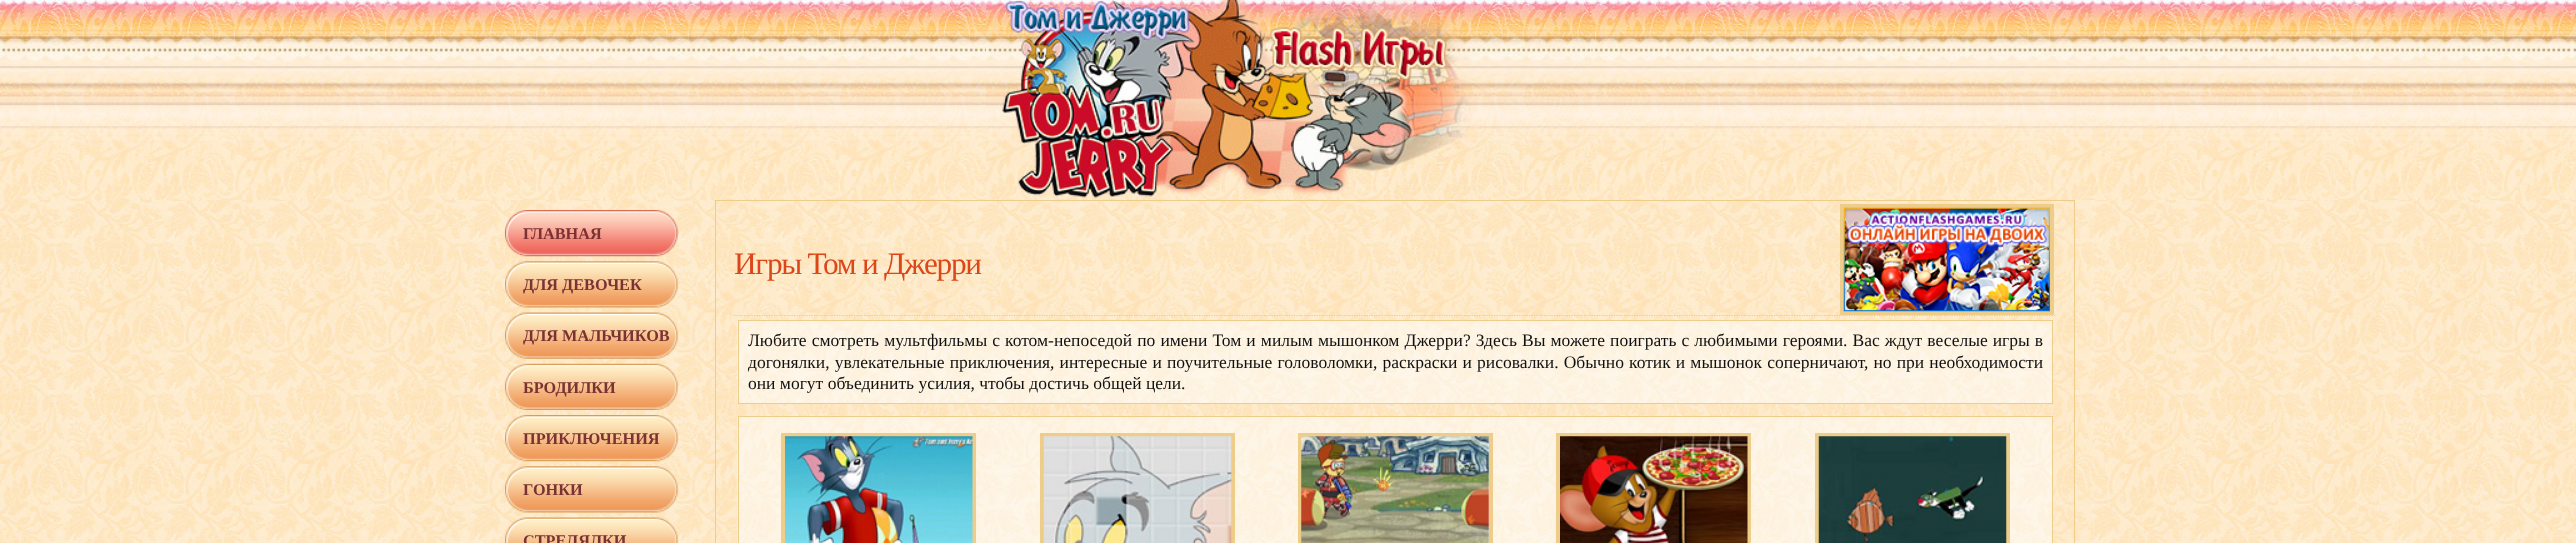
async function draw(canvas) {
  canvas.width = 2576
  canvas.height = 543
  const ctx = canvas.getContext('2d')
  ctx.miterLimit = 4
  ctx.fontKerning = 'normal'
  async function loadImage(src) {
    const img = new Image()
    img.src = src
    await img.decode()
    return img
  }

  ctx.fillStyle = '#fff'
  ctx.fillRect(0, 0, 2576, 543)
  ctx.drawImage(await loadImage('image0.png'), 0, 200, 2576, 343)
  ctx.drawImage(await loadImage('image1.png'), 0, 0, 2576, 200)
  ctx.drawImage(await loadImage('image2.png'), 986, 0, 606, 200)
  ctx.drawImage(await loadImage('image3.png'), 986, 0, 606, 200)
  ctx.drawImage(await loadImage('image4.png'), 505, 210, 174, 47)
  ctx.font = 'bold 16.25px Liberation Serif'
  ctx.fillStyle = '#7a3232'
  ctx.fillText('ГЛАВНАЯ', 523, 239)
  ctx.drawImage(await loadImage('image5.png'), 505, 261, 174, 47)
  ctx.fillText('ДЛЯ ДЕВОЧЕК', 523, 290)
  ctx.drawImage(await loadImage('image6.png'), 505, 312, 174, 47)
  ctx.fillText('ДЛЯ МАЛЬЧИКОВ', 523, 341)
  ctx.drawImage(await loadImage('image7.png'), 505, 363, 174, 47)
  ctx.fillText('БРОДИЛКИ', 523, 393)
  ctx.drawImage(await loadImage('image8.png'), 505, 415, 174, 47)
  ctx.fillText('ПРИКЛЮЧЕНИЯ', 523, 444)
  ctx.drawImage(await loadImage('image9.png'), 505, 466, 174, 47)
  ctx.fillText('ГОНКИ', 523, 495)
  ctx.drawImage(await loadImage('image10.png'), 505, 517, 174, 26)
  ctx.fillText('СТРЕЛЯЛКИ', 523, 546)
  ctx.strokeStyle = '#eecd8a'
  ctx.strokeRect(715.5, 200.5, 1359, 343)
  ctx.beginPath()
  ctx.moveTo(734, 315.5)
  ctx.lineTo(2056, 315.5)
  ctx.strokeStyle = '#f7c490'
  ctx.lineWidth = 1.2
  ctx.setLineDash([1.25, 1.25])
  ctx.stroke()
  ctx.letterSpacing = '-1.25px'
  ctx.font = '31.25px Liberation Serif'
  ctx.fillStyle = '#dc4618'
  ctx.fillText('Игры Том и Джерри', 734, 274)
  ctx.strokeStyle = '#eecd8a'
  ctx.lineWidth = 4
  ctx.setLineDash([])
  ctx.strokeRect(1842, 206, 210, 107)
  ctx.drawImage(await loadImage('image11.png'), 1843, 207, 207, 105)
  ctx.drawImage(await loadImage('image12.png'), 737, 320, 1315, 84)
  ctx.lineWidth = 1
  ctx.strokeRect(738.5, 320.5, 1314, 83)
  ctx.letterSpacing = '0px'
  ctx.wordSpacing = '0.7px'
  ctx.font = '17.5px Liberation Serif'
  ctx.fillStyle = '#111'
  ctx.fillText('Любите смотреть мультфильмы с котом-непоседой по имени Том и милым мышонком Джерри? Здесь Вы можете поиграть с любимыми героями. Вас ждут веселые игры в', 748, 346)
  ctx.wordSpacing = '0.75px'
  ctx.fillText('догонялки, увлекательные приключения, интересные и поучительные головоломки, раскраски и рисовалки. Обычно котик и мышонок соперничают, но при необходимости', 748, 368)
  ctx.wordSpacing = '0px'
  ctx.fillText('они могут объединить усилия, чтобы достичь общей цели.', 748, 389)
  ctx.drawImage(await loadImage('image13.png'), 737, 416, 1315, 127)
  ctx.strokeRect(738.5, 416.5, 1314, 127)
  ctx.lineWidth = 4
  ctx.strokeRect(783, 435, 191, 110)
  ctx.drawImage(await loadImage('image14.png'), 785, 436, 188, 107)
  ctx.strokeRect(1042, 435, 191, 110)
  ctx.drawImage(await loadImage('image15.png'), 1043, 436, 189, 107)
  ctx.strokeRect(1300, 435, 191, 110)
  ctx.drawImage(await loadImage('image16.png'), 1301, 436, 188, 107)
  ctx.strokeRect(1558, 435, 191, 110)
  ctx.drawImage(await loadImage('image17.png'), 1560, 436, 188, 107)
  ctx.strokeRect(1817, 435, 191, 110)
  ctx.drawImage(await loadImage('image18.png'), 1818, 436, 189, 107)
}

draw(document.querySelector('canvas'))
